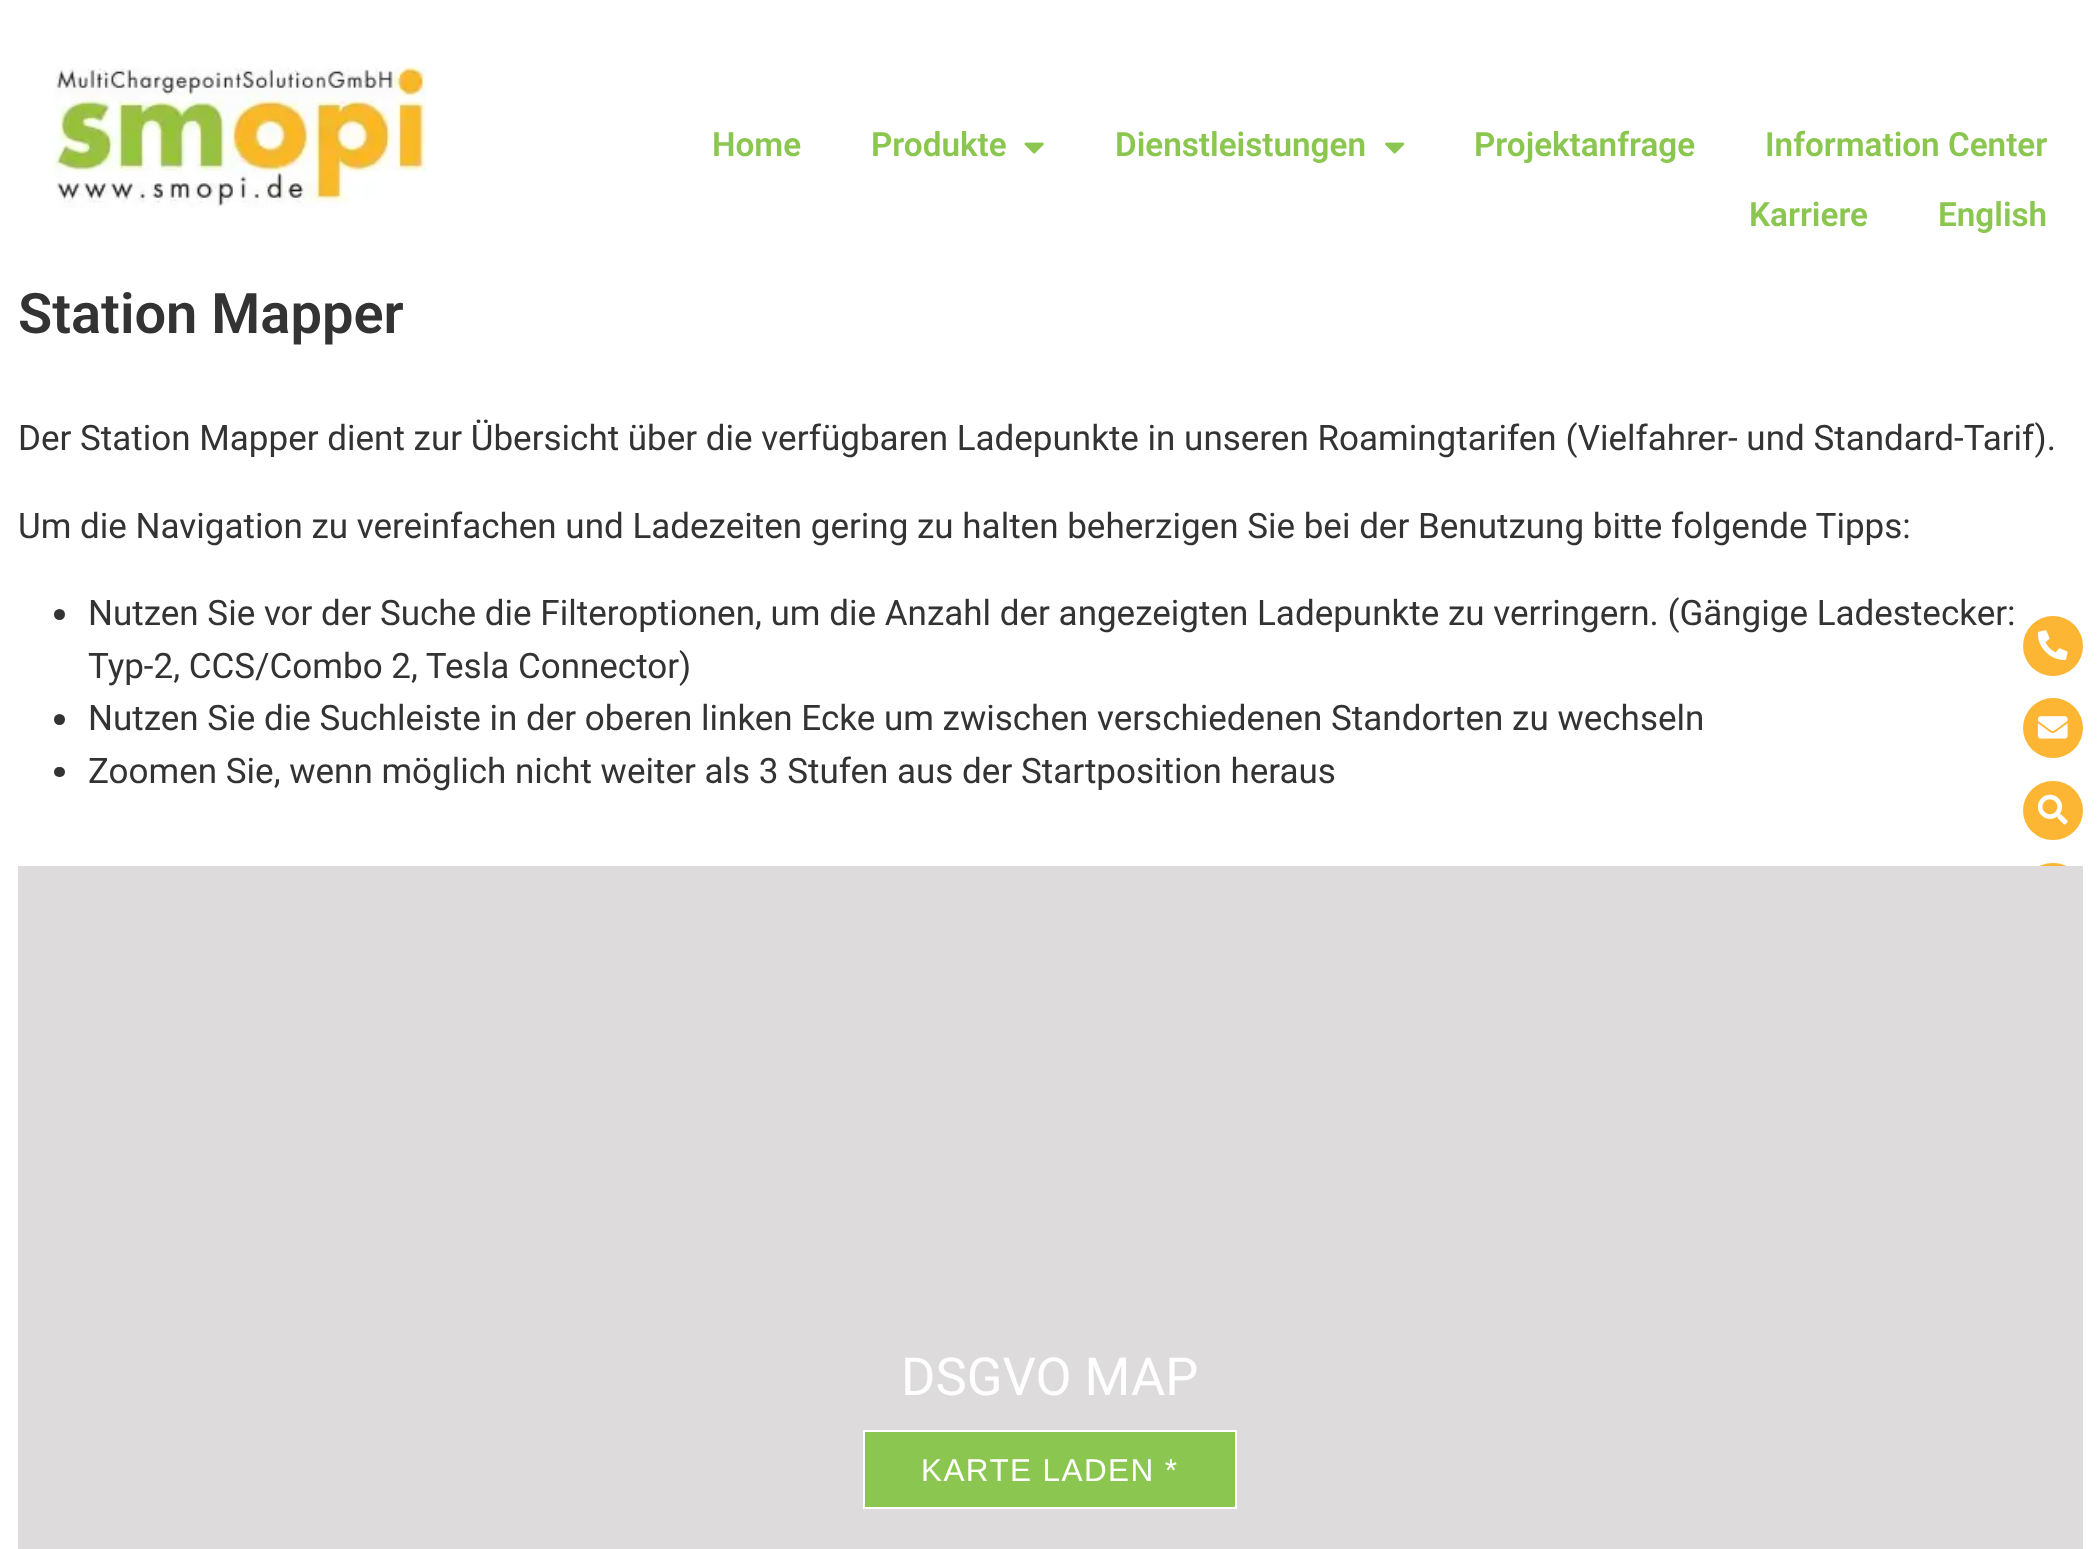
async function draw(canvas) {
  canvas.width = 2099
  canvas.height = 1549
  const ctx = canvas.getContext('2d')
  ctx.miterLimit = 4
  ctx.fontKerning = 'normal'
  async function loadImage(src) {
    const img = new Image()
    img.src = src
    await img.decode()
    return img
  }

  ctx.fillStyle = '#fff'
  ctx.fillRect(0, 0, 2099, 1549)
  ctx.drawImage(await loadImage('image0.png'), 50, 66, 377, 142)
  ctx.font = '600 33.25px Roboto'
  ctx.fillStyle = '#8bc750'
  ctx.fillText('Home', 712, 156)
  ctx.fillText('Produkte', 871, 156)
  ctx.drawImage(await loadImage('image1.png'), 1024, 142, 20, 12)
  ctx.fillText('Dienstleistungen', 1115, 156)
  ctx.drawImage(await loadImage('image2.png'), 1385, 142, 20, 12)
  ctx.fillText('Projektanfrage', 1474, 156)
  ctx.fillText('Information Center', 1765, 156)
  ctx.fillText('Karriere', 1749, 226)
  ctx.fillText('English', 1938, 226)
  ctx.font = '600 56px Roboto'
  ctx.fillStyle = '#333'
  ctx.fillText('Station Mapper', 18, 333)
  ctx.font = '35px Roboto'
  ctx.fillText('Der Station Mapper dient zur Übersicht über die verfügbaren Ladepunkte in unseren Roamingtarifen (Vielfahrer- und Standard-Tarif).', 18, 450)
  ctx.fillText('Um die Navigation zu vereinfachen und Ladezeiten gering zu halten beherzigen Sie bei der Benutzung bitte folgende Tipps:', 18, 538)
  ctx.beginPath()
  ctx.arc(59.5, 614.5, 5.5, 0, 2 * Math.PI)
  ctx.fill()
  ctx.fillText('Nutzen Sie vor der Suche die Filteroptionen, um die Anzahl der angezeigten Ladepunkte zu verringern. (Gängige Ladestecker:', 88, 625)
  ctx.fillText('Typ-2, CCS/Combo 2, Tesla Connector)', 88, 678)
  ctx.beginPath()
  ctx.arc(59.5, 719.5, 5.5, 0, 2 * Math.PI)
  ctx.fill()
  ctx.fillText('Nutzen Sie die Suchleiste in der oberen linken Ecke um zwischen verschiedenen Standorten zu wechseln', 88, 730)
  ctx.beginPath()
  ctx.roundRect(54, 767, 11, 10, 5)
  ctx.fill()
  ctx.fillText('Zoomen Sie, wenn möglich nicht weiter als 3 Stufen aus der Startposition heraus', 88, 783)
  ctx.fillStyle = '#fcb633'
  ctx.beginPath()
  ctx.roundRect(2023, 863, 60, 59, 29.5)
  ctx.fill()
  ctx.fillStyle = '#dddbdc'
  ctx.fillRect(18, 866, 2065, 683)
  ctx.font = '52.5px Roboto'
  ctx.fillStyle = '#fff'
  ctx.fillText('DSGVO MAP', 901, 1395)
  ctx.fillStyle = '#8bc750'
  ctx.beginPath()
  ctx.rect(864, 1431, 372, 77)
  ctx.fill()
  ctx.strokeStyle = '#fff'
  ctx.lineWidth = 2
  ctx.stroke()
  ctx.letterSpacing = '1.4px'
  ctx.font = '31.5px Liberation Sans'
  ctx.fillStyle = '#fff'
  ctx.fillText('KARTE LADEN *', 921, 1481)
  ctx.fillStyle = '#fcb633'
  ctx.beginPath()
  ctx.arc(2053, 646, 30, 0, 2 * Math.PI)
  ctx.fill()
  ctx.drawImage(await loadImage('image3.png'), 2037, 630, 31, 30)
  ctx.beginPath()
  ctx.arc(2053, 728, 30, 0, 2 * Math.PI)
  ctx.fill()
  ctx.drawImage(await loadImage('image4.png'), 2037, 716, 31, 23)
  ctx.beginPath()
  ctx.roundRect(2023, 781, 60, 59, 29.5)
  ctx.fill()
  ctx.drawImage(await loadImage('image5.png'), 2037, 794, 31, 31)
}

draw(document.querySelector('canvas'))
